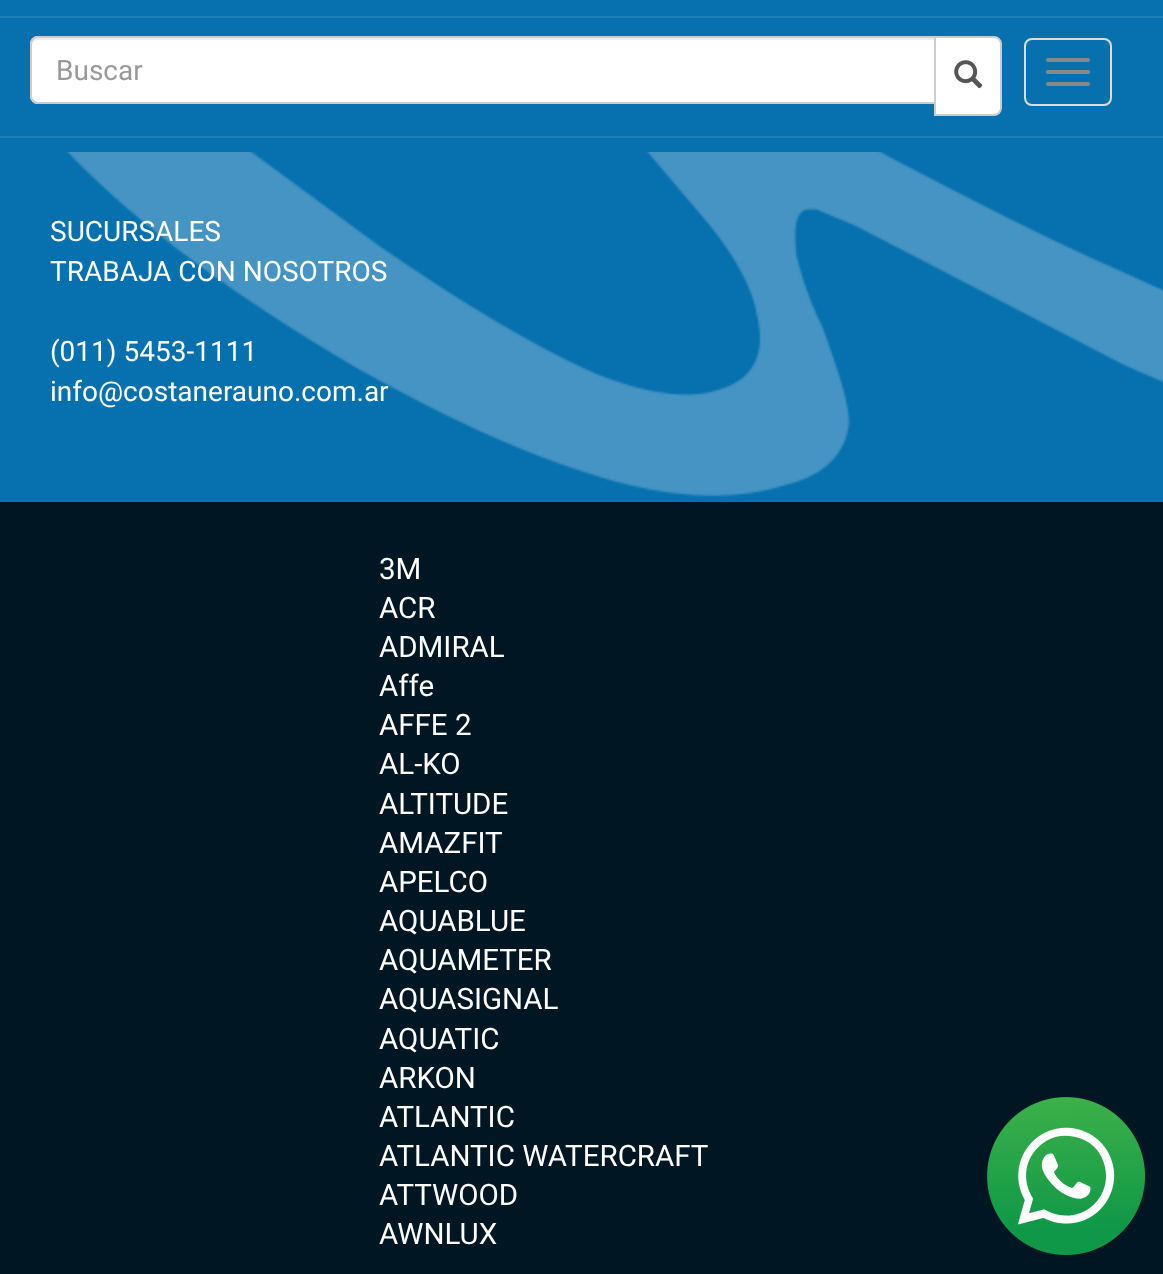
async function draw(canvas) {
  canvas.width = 1163
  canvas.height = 1274
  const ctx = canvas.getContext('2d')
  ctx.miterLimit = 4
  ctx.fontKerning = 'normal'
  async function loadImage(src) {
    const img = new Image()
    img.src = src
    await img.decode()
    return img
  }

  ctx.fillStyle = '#0771af'
  ctx.fillRect(0, 0, 1163, 1274)
  ctx.fillStyle = '#207fb7'
  ctx.fillRect(0, 136, 1163, 2)
  ctx.fillRect(0, 16, 1163, 2)
  ctx.fillStyle = '#fff'
  ctx.beginPath()
  ctx.roundRect(30, 36, 906, 68, [8, 0, 0, 8])
  ctx.fill()
  ctx.fillStyle = '#ececec'
  ctx.beginPath()
  ctx.moveTo(38, 40)
  ctx.lineTo(934, 40)
  ctx.lineTo(934, 38)
  ctx.lineTo(38, 38)
  ctx.bezierCurveTo(33, 38, 32, 42, 32, 46)
  ctx.bezierCurveTo(32, 43, 35, 40, 38, 40)
  ctx.closePath()
  ctx.fill()
  ctx.beginPath()
  ctx.roundRect(31, 37, 904, 66, [7, 0, 0, 7])
  ctx.strokeStyle = '#ccc'
  ctx.lineWidth = 2
  ctx.stroke()
  ctx.font = '28px Roboto'
  ctx.fillStyle = '#999'
  ctx.fillText('Buscar', 56, 80)
  ctx.fillStyle = '#fff'
  ctx.beginPath()
  ctx.roundRect(935, 37, 66, 78, [0, 7, 7, 0])
  ctx.fill()
  ctx.stroke()
  ctx.drawImage(await loadImage('image0.png'), 954, 60, 29, 29)
  ctx.beginPath()
  ctx.roundRect(1025, 39, 86, 66, 7)
  ctx.strokeStyle = '#ddd'
  ctx.stroke()
  ctx.fillStyle = '#888'
  ctx.beginPath()
  ctx.roundRect(1046, 58, 44, 4, 2)
  ctx.fill()
  ctx.beginPath()
  ctx.roundRect(1046, 70, 44, 4, 2)
  ctx.fill()
  ctx.beginPath()
  ctx.roundRect(1046, 82, 44, 4, 2)
  ctx.fill()
  ctx.drawImage(await loadImage('image1.png'), 66, 152, 1097, 345)
  ctx.fillStyle = '#fff'
  ctx.fillText('SUCURSALES', 50, 241)
  ctx.fillText('TRABAJA CON NOSOTROS', 50, 281)
  ctx.fillText('(011) 5453-1111', 50, 361)
  ctx.fillText('info@costanerauno.com.ar', 50, 401)
  ctx.fillStyle = '#001623'
  ctx.fillRect(0, 502, 1163, 772)
  ctx.font = '29.5px Roboto'
  ctx.fillStyle = '#fff'
  ctx.fillText('3M', 379, 579)
  ctx.fillText('ACR', 379, 618)
  ctx.fillText('ADMIRAL', 379, 657)
  ctx.fillText('Affe', 379, 696)
  ctx.fillText('AFFE 2', 379, 735)
  ctx.fillText('AL-KO', 379, 774)
  ctx.fillText('ALTITUDE', 379, 814)
  ctx.fillText('AMAZFIT', 379, 853)
  ctx.fillText('APELCO', 379, 892)
  ctx.fillText('AQUABLUE', 379, 931)
  ctx.fillText('AQUAMETER', 379, 970)
  ctx.fillText('AQUASIGNAL', 379, 1009)
  ctx.fillText('AQUATIC', 379, 1049)
  ctx.fillText('ARKON', 379, 1088)
  ctx.fillText('ATLANTIC', 379, 1127)
  ctx.fillText('ATLANTIC WATERCRAFT', 379, 1166)
  ctx.fillText('ATTWOOD', 379, 1205)
  ctx.fillText('AWNLUX', 379, 1244)
  ctx.drawImage(await loadImage('image2.png'), 987, 1097, 158, 158)
}

draw(document.querySelector('canvas'))
